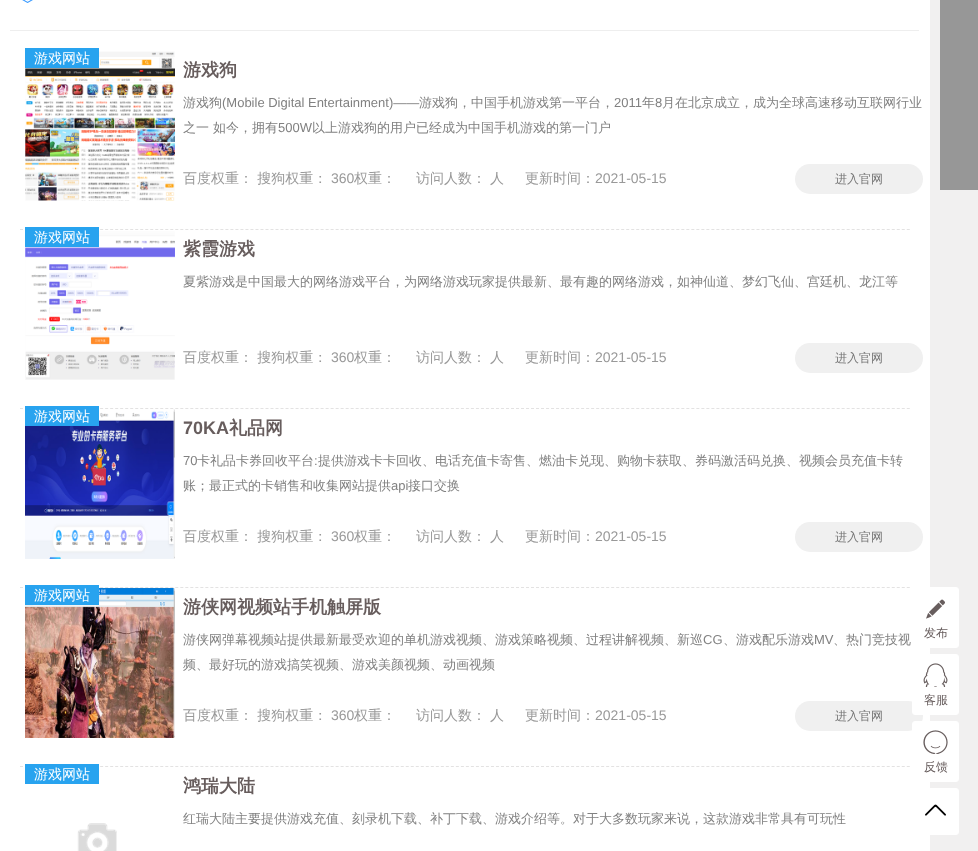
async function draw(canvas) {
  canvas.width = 978
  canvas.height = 851
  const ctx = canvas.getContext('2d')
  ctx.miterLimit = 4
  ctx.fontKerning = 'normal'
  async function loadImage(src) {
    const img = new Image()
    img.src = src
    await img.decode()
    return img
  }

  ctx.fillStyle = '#f1f0f0'
  ctx.fillRect(0, 0, 978, 851)
  ctx.fillStyle = '#fff'
  ctx.fillRect(0, 0, 930, 851)
  ctx.fillStyle = '#eee'
  ctx.fillRect(10, 30, 909, 1)
  ctx.drawImage(await loadImage('image0.png'), 22, 0, 11, 3)
  ctx.beginPath()
  ctx.moveTo(20, 229.5)
  ctx.lineTo(910, 229.5)
  ctx.strokeStyle = '#e3e2e2'
  ctx.setLineDash([3, 2.01])
  ctx.stroke()
  ctx.drawImage(await loadImage('image1.png'), 25, 51, 150, 150)
  ctx.fillStyle = '#28a3ef'
  ctx.fillRect(25, 48, 74, 20)
  ctx.font = '500 14px WenQuanYi Zen Hei'
  ctx.fillStyle = '#fff'
  ctx.fillText('游戏网站', 34, 63)
  ctx.font = 'bold 18px WenQuanYi Zen Hei'
  ctx.fillStyle = '#675d5d'
  ctx.fillText('游戏狗', 183, 76)
  ctx.font = '500 13px WenQuanYi Zen Hei'
  ctx.fillStyle = '#818181'
  ctx.fillText('游戏狗', 183, 107)
  ctx.font = '13px Liberation Sans'
  ctx.fillText('(Mobile Digital Entertainment)——', 222, 107)
  ctx.font = '500 13px WenQuanYi Zen Hei'
  ctx.fillText('游戏狗，中国手机游戏第一平台，', 419, 107)
  ctx.font = '13px Liberation Sans'
  ctx.fillText('2011', 614, 107)
  ctx.font = '500 13px WenQuanYi Zen Hei'
  ctx.fillText('年', 642, 107)
  ctx.font = '13px Liberation Sans'
  ctx.fillText('8', 655, 107)
  ctx.font = '500 13px WenQuanYi Zen Hei'
  ctx.fillText('月在北京成立，成为全球高速移动互联网行业', 662, 107)
  ctx.fillText('之一 如今，拥有', 183, 132)
  ctx.font = '13px Liberation Sans'
  ctx.fillText('500W', 278, 132)
  ctx.font = '500 13px WenQuanYi Zen Hei'
  ctx.fillText('以上游戏狗的用户已经成为中国手机游戏的第一门户', 312, 132)
  ctx.font = '500 14px WenQuanYi Zen Hei'
  ctx.fillStyle = '#999'
  ctx.fillText('百度权重： 搜狗权重：', 183, 183)
  ctx.font = '14px Liberation Sans'
  ctx.fillText('360', 331, 183)
  ctx.font = '500 14px WenQuanYi Zen Hei'
  ctx.fillText('权重：', 354, 183)
  ctx.fillText('访问人数：', 416, 183)
  ctx.fillText('人', 490, 183)
  ctx.fillText('更新时间：', 525, 183)
  ctx.font = '14px Liberation Sans'
  ctx.fillText('2021-05-15', 595, 183)
  ctx.fillStyle = '#f0f0f0'
  ctx.beginPath()
  ctx.roundRect(795, 164, 128, 30, 15)
  ctx.fill()
  ctx.font = '500 12px WenQuanYi Zen Hei'
  ctx.fillStyle = '#737373'
  ctx.fillText('进入官网', 835, 183)
  ctx.beginPath()
  ctx.moveTo(20, 408.5)
  ctx.lineTo(910, 408.5)
  ctx.stroke()
  ctx.drawImage(await loadImage('image2.png'), 25, 231, 150, 149)
  ctx.fillStyle = '#28a3ef'
  ctx.fillRect(25, 227, 74, 20)
  ctx.font = '500 14px WenQuanYi Zen Hei'
  ctx.fillStyle = '#fff'
  ctx.fillText('游戏网站', 34, 242)
  ctx.font = 'bold 18px WenQuanYi Zen Hei'
  ctx.fillStyle = '#675d5d'
  ctx.fillText('紫霞游戏', 183, 255)
  ctx.font = '500 13px WenQuanYi Zen Hei'
  ctx.fillStyle = '#818181'
  ctx.fillText('夏紫游戏是中国最大的网络游戏平台，为网络游戏玩家提供最新、最有趣的网络游戏，如神仙道、梦幻飞仙、宫廷机、龙江等', 183, 286)
  ctx.font = '500 14px WenQuanYi Zen Hei'
  ctx.fillStyle = '#999'
  ctx.fillText('百度权重： 搜狗权重：', 183, 362)
  ctx.font = '14px Liberation Sans'
  ctx.fillText('360', 331, 362)
  ctx.font = '500 14px WenQuanYi Zen Hei'
  ctx.fillText('权重：', 354, 362)
  ctx.fillText('访问人数：', 416, 362)
  ctx.fillText('人', 490, 362)
  ctx.fillText('更新时间：', 525, 362)
  ctx.font = '14px Liberation Sans'
  ctx.fillText('2021-05-15', 595, 362)
  ctx.fillStyle = '#f0f0f0'
  ctx.beginPath()
  ctx.roundRect(795, 343, 128, 30, 15)
  ctx.fill()
  ctx.font = '500 12px WenQuanYi Zen Hei'
  ctx.fillStyle = '#737373'
  ctx.fillText('进入官网', 835, 362)
  ctx.beginPath()
  ctx.moveTo(20, 587.5)
  ctx.lineTo(910, 587.5)
  ctx.stroke()
  ctx.drawImage(await loadImage('image3.png'), 25, 409, 150, 150)
  ctx.fillStyle = '#28a3ef'
  ctx.fillRect(25, 406, 74, 20)
  ctx.font = '500 14px WenQuanYi Zen Hei'
  ctx.fillStyle = '#fff'
  ctx.fillText('游戏网站', 34, 421)
  ctx.font = 'bold 18px Liberation Sans'
  ctx.fillStyle = '#675d5d'
  ctx.fillText('70KA', 183, 434)
  ctx.font = 'bold 18px WenQuanYi Zen Hei'
  ctx.fillText('礼品网', 229, 434)
  ctx.font = '13px Liberation Sans'
  ctx.fillStyle = '#818181'
  ctx.fillText('70', 183, 465)
  ctx.font = '500 13px WenQuanYi Zen Hei'
  ctx.fillText('卡礼品卡券回收平台 提供游戏卡卡回收、电话充值卡寄售、燃油卡兑现、购物卡获取、券码激活码兑换、视频会员充值卡转', 197, 465)
  ctx.font = '13px Liberation Sans'
  ctx.fillText(':', 314, 465)
  ctx.font = '500 13px WenQuanYi Zen Hei'
  ctx.fillText('账；最正式的卡销售和收集网站提供', 183, 490)
  ctx.font = '13px Liberation Sans'
  ctx.fillText('api', 391, 490)
  ctx.font = '500 13px WenQuanYi Zen Hei'
  ctx.fillText('接口交换', 408, 490)
  ctx.font = '500 14px WenQuanYi Zen Hei'
  ctx.fillStyle = '#999'
  ctx.fillText('百度权重： 搜狗权重：', 183, 541)
  ctx.font = '14px Liberation Sans'
  ctx.fillText('360', 331, 541)
  ctx.font = '500 14px WenQuanYi Zen Hei'
  ctx.fillText('权重：', 354, 541)
  ctx.fillText('访问人数：', 416, 541)
  ctx.fillText('人', 490, 541)
  ctx.fillText('更新时间：', 525, 541)
  ctx.font = '14px Liberation Sans'
  ctx.fillText('2021-05-15', 595, 541)
  ctx.fillStyle = '#f0f0f0'
  ctx.beginPath()
  ctx.roundRect(795, 522, 128, 30, 15)
  ctx.fill()
  ctx.font = '500 12px WenQuanYi Zen Hei'
  ctx.fillStyle = '#737373'
  ctx.fillText('进入官网', 835, 541)
  ctx.beginPath()
  ctx.moveTo(20, 766.5)
  ctx.lineTo(910, 766.5)
  ctx.stroke()
  ctx.drawImage(await loadImage('image4.png'), 25, 588, 150, 150)
  ctx.fillStyle = '#28a3ef'
  ctx.fillRect(25, 585, 74, 20)
  ctx.font = '500 14px WenQuanYi Zen Hei'
  ctx.fillStyle = '#fff'
  ctx.fillText('游戏网站', 34, 600)
  ctx.font = 'bold 18px WenQuanYi Zen Hei'
  ctx.fillStyle = '#675d5d'
  ctx.fillText('游侠网视频站手机触屏版', 183, 613)
  ctx.font = '500 13px WenQuanYi Zen Hei'
  ctx.fillStyle = '#818181'
  ctx.fillText('游侠网弹幕视频站提供最新最受欢迎的单机游戏视频、游戏策略视频、过程讲解视频、新巡', 183, 644)
  ctx.font = '13px Liberation Sans'
  ctx.fillText('CG', 703, 644)
  ctx.font = '500 13px WenQuanYi Zen Hei'
  ctx.fillText('、游戏配乐游戏', 723, 644)
  ctx.font = '13px Liberation Sans'
  ctx.fillText('MV', 814, 644)
  ctx.font = '500 13px WenQuanYi Zen Hei'
  ctx.fillText('、热门竞技视', 833, 644)
  ctx.fillText('频、最好玩的游戏搞笑视频、游戏美颜视频、动画视频', 183, 669)
  ctx.font = '500 14px WenQuanYi Zen Hei'
  ctx.fillStyle = '#999'
  ctx.fillText('百度权重： 搜狗权重：', 183, 720)
  ctx.font = '14px Liberation Sans'
  ctx.fillText('360', 331, 720)
  ctx.font = '500 14px WenQuanYi Zen Hei'
  ctx.fillText('权重：', 354, 720)
  ctx.fillText('访问人数：', 416, 720)
  ctx.fillText('人', 490, 720)
  ctx.fillText('更新时间：', 525, 720)
  ctx.font = '14px Liberation Sans'
  ctx.fillText('2021-05-15', 595, 720)
  ctx.fillStyle = '#f0f0f0'
  ctx.beginPath()
  ctx.roundRect(795, 701, 128, 30, 15)
  ctx.fill()
  ctx.font = '500 12px WenQuanYi Zen Hei'
  ctx.fillStyle = '#737373'
  ctx.fillText('进入官网', 835, 720)
  ctx.fillStyle = '#28a3ef'
  ctx.fillRect(25, 764, 74, 20)
  ctx.font = '500 14px WenQuanYi Zen Hei'
  ctx.fillStyle = '#fff'
  ctx.fillText('游戏网站', 34, 779)
  ctx.drawImage(await loadImage('image5.png'), 77, 823, 40, 28)
  ctx.font = 'bold 18px WenQuanYi Zen Hei'
  ctx.fillStyle = '#675d5d'
  ctx.fillText('鸿瑞大陆', 183, 792)
  ctx.font = '500 13px WenQuanYi Zen Hei'
  ctx.fillStyle = '#818181'
  ctx.fillText('红瑞大陆主要提供游戏充值、刻录机下载、补丁下载、游戏介绍等。对于大多数玩家来说，这款游戏非常具有可玩性', 183, 823)
  ctx.fillStyle = '#979797'
  ctx.fillRect(940, 0, 38, 190)
  ctx.fillStyle = '#fff'
  ctx.beginPath()
  ctx.roundRect(912.5, 587.5, 46, 60, 2.5)
  ctx.fill()
  ctx.strokeStyle = '#fff'
  ctx.setLineDash([])
  ctx.stroke()
  ctx.drawImage(await loadImage('image6.png'), 926, 599, 19, 20)
  ctx.font = '500 12px WenQuanYi Zen Hei'
  ctx.fillStyle = '#675d5d'
  ctx.fillText('发布', 924, 637)
  ctx.fillStyle = '#fff'
  ctx.beginPath()
  ctx.roundRect(912.5, 654.5, 46, 60, 2.5)
  ctx.fill()
  ctx.stroke()
  ctx.drawImage(await loadImage('image7.png'), 923, 663, 25, 24)
  ctx.fillStyle = '#675d5d'
  ctx.fillText('客服', 924, 704)
  ctx.fillStyle = '#fff'
  ctx.beginPath()
  ctx.roundRect(912.5, 721.5, 46, 60, 2.5)
  ctx.fill()
  ctx.stroke()
  ctx.drawImage(await loadImage('image8.png'), 923, 730, 25, 24)
  ctx.fillStyle = '#675d5d'
  ctx.fillText('反馈', 924, 771)
  ctx.fillStyle = '#fff'
  ctx.beginPath()
  ctx.roundRect(912.5, 788.5, 46, 46, 2.5)
  ctx.fill()
  ctx.stroke()
  ctx.drawImage(await loadImage('image9.png'), 925, 804, 21, 12)
}

draw(document.querySelector('canvas'))
